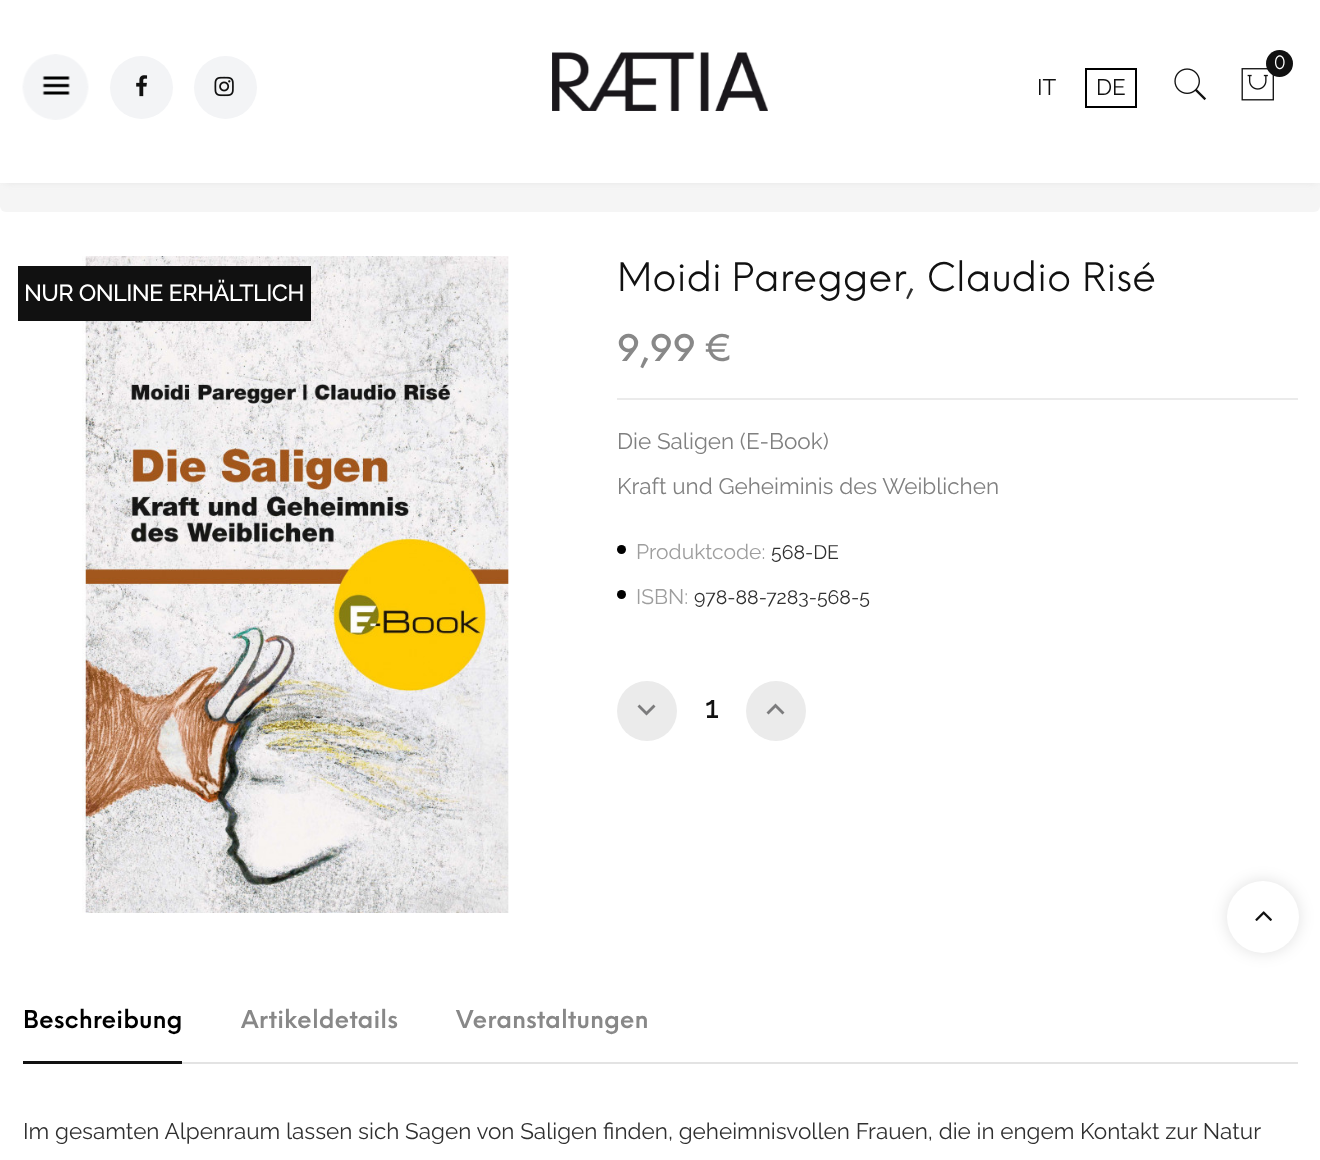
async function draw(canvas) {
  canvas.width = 1320
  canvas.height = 1160
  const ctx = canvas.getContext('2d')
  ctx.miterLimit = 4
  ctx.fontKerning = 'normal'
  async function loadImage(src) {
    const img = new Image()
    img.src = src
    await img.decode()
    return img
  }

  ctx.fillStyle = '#fff'
  ctx.fillRect(0, 0, 1320, 1160)
  ctx.fillStyle = '#f5f5f5'
  ctx.beginPath()
  ctx.roundRect(0, 44, 1320, 168, 6)
  ctx.fill()
  ctx.fillStyle = '#d3d3d3'
  ctx.filter = 'blur(4px)'
  ctx.beginPath()
  ctx.rect(5, 6, 1311, 174)
  ctx.fill()
  ctx.filter = 'none'
  ctx.fillStyle = '#fff'
  ctx.fillRect(0, 0, 1320, 183)
  ctx.drawImage(await loadImage('image0.png'), 22, 54, 67, 66)
  ctx.fillStyle = '#f3f4f6'
  ctx.beginPath()
  ctx.arc(141.5, 87.5, 31.5, 0, 2 * Math.PI)
  ctx.fill()
  ctx.drawImage(await loadImage('image1.png'), 136, 75, 12, 22)
  ctx.beginPath()
  ctx.arc(225.5, 87.5, 31.5, 0, 2 * Math.PI)
  ctx.fill()
  ctx.drawImage(await loadImage('image2.png'), 214, 76, 20, 21)
  ctx.drawImage(await loadImage('image3.png'), 552, 52, 216, 59)
  ctx.drawImage(await loadImage('image4.png'), 1241, 68, 33, 33)
  ctx.fillStyle = '#111'
  ctx.beginPath()
  ctx.arc(1279.5, 63.5, 13.5, 0, 2 * Math.PI)
  ctx.fill()
  ctx.font = '18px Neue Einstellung'
  ctx.fillStyle = '#fff'
  ctx.fillText('0', 1274, 69)
  ctx.font = '100 22.5px Raleway'
  ctx.fillStyle = '#111'
  ctx.fillText('IT', 1037, 95)
  ctx.strokeStyle = '#000'
  ctx.lineWidth = 2
  ctx.strokeRect(1086, 69, 50, 38)
  ctx.fillText('DE', 1096, 95)
  ctx.drawImage(await loadImage('image5.png'), 1174, 68, 33, 33)
  ctx.drawImage(await loadImage('image6.png'), 82, 256, 427, 657)
  ctx.fillRect(18, 266, 293, 55)
  ctx.font = 'bold 22.5px Raleway'
  ctx.fillStyle = '#fff'
  ctx.fillText('NUR ONLINE ERHÄLTLICH', 24, 301)
  ctx.wordSpacing = '-1px'
  ctx.font = '38.5px Neue Einstellung'
  ctx.fillStyle = '#111'
  ctx.fillText('Moidi Paregger', 617, 291)
  ctx.wordSpacing = '0px'
  ctx.fillText('Claudio Risé', 926, 291)
  ctx.fillStyle = '#303030'
  ctx.fillText(',', 906, 291)
  ctx.font = '500 36px Neue Einstellung'
  ctx.fillStyle = '#888'
  ctx.fillText('9,99 €', 617, 361)
  ctx.fillStyle = '#ebebeb'
  ctx.fillRect(617, 398, 681, 2)
  ctx.font = '100 22.5px Raleway'
  ctx.fillStyle = '#808080'
  ctx.fillText('Die Saligen (E-Book)', 617, 449)
  ctx.fillText('Kraft und Geheiminis des Weiblichen', 617, 494)
  ctx.fillStyle = '#000'
  ctx.beginPath()
  ctx.arc(621.5, 549.5, 4.5, 0, 2 * Math.PI)
  ctx.fill()
  ctx.font = '100 21px Raleway'
  ctx.fillStyle = '#9e9e9e'
  ctx.fillText('Produktcode:', 636, 559)
  ctx.font = '100 19.5px Raleway'
  ctx.fillStyle = '#303030'
  ctx.fillText('568-DE', 771, 559)
  ctx.fillStyle = '#000'
  ctx.beginPath()
  ctx.arc(621.5, 594.5, 4.5, 0, 2 * Math.PI)
  ctx.fill()
  ctx.font = '100 21px Raleway'
  ctx.fillStyle = '#9e9e9e'
  ctx.fillText('ISBN:', 636, 604)
  ctx.font = '100 19.5px Raleway'
  ctx.fillStyle = '#303030'
  ctx.fillText('978-88-7283-568-5', 694, 604)
  ctx.fillStyle = '#ebebeb'
  ctx.beginPath()
  ctx.arc(647, 711, 30, 0, 2 * Math.PI)
  ctx.fill()
  ctx.fillStyle = '#7c7c7d'
  ctx.beginPath()
  ctx.moveTo(653.5, 704.5)
  ctx.lineTo(655.5, 706.5)
  ctx.lineTo(646.5, 715.5)
  ctx.lineTo(637.5, 706.5)
  ctx.lineTo(639.5, 704.5)
  ctx.lineTo(646.5, 711.5)
  ctx.closePath()
  ctx.fill()
  ctx.fillStyle = '#ebebeb'
  ctx.beginPath()
  ctx.arc(776, 711, 30, 0, 2 * Math.PI)
  ctx.fill()
  ctx.fillStyle = '#7c7c7d'
  ctx.beginPath()
  ctx.moveTo(775.5, 703.5)
  ctx.lineTo(784.5, 712.5)
  ctx.lineTo(782.5, 714.5)
  ctx.lineTo(775.5, 707.5)
  ctx.lineTo(768.5, 714.5)
  ctx.lineTo(766.5, 712.5)
  ctx.closePath()
  ctx.fill()
  ctx.font = 'bold 30px Raleway'
  ctx.fillStyle = '#111'
  ctx.fillText('1', 705, 718)
  ctx.fillRect(23, 1061, 159, 3)
  ctx.font = '600 24px Neue Einstellung'
  ctx.fillStyle = '#000'
  ctx.fillText('Beschreibung', 23, 1028)
  ctx.fillStyle = '#888'
  ctx.fillText('Artikeldetails', 241, 1028)
  ctx.fillText('Veranstaltungen', 456, 1028)
  ctx.fillStyle = '#e3e3e3'
  ctx.fillRect(182, 1062, 1116, 2)
  ctx.font = '100 22.5px Raleway'
  ctx.fillStyle = '#303030'
  ctx.fillText('Im gesamten Alpenraum lassen sich Sagen von Saligen finden, geheimnisvollen Frauen, die in engem Kontakt zur Natur', 23, 1139)
  ctx.fillStyle = '#0000001f'
  ctx.filter = 'blur(8px)'
  ctx.beginPath()
  ctx.roundRect(1227, 881, 72, 72, 36)
  ctx.fill()
  ctx.filter = 'none'
  ctx.fillStyle = '#fff'
  ctx.beginPath()
  ctx.arc(1263, 917, 36, 0, 2 * Math.PI)
  ctx.fill()
  ctx.drawImage(await loadImage('image7.png'), 1255, 911, 17, 10)
}

draw(document.querySelector('canvas'))
